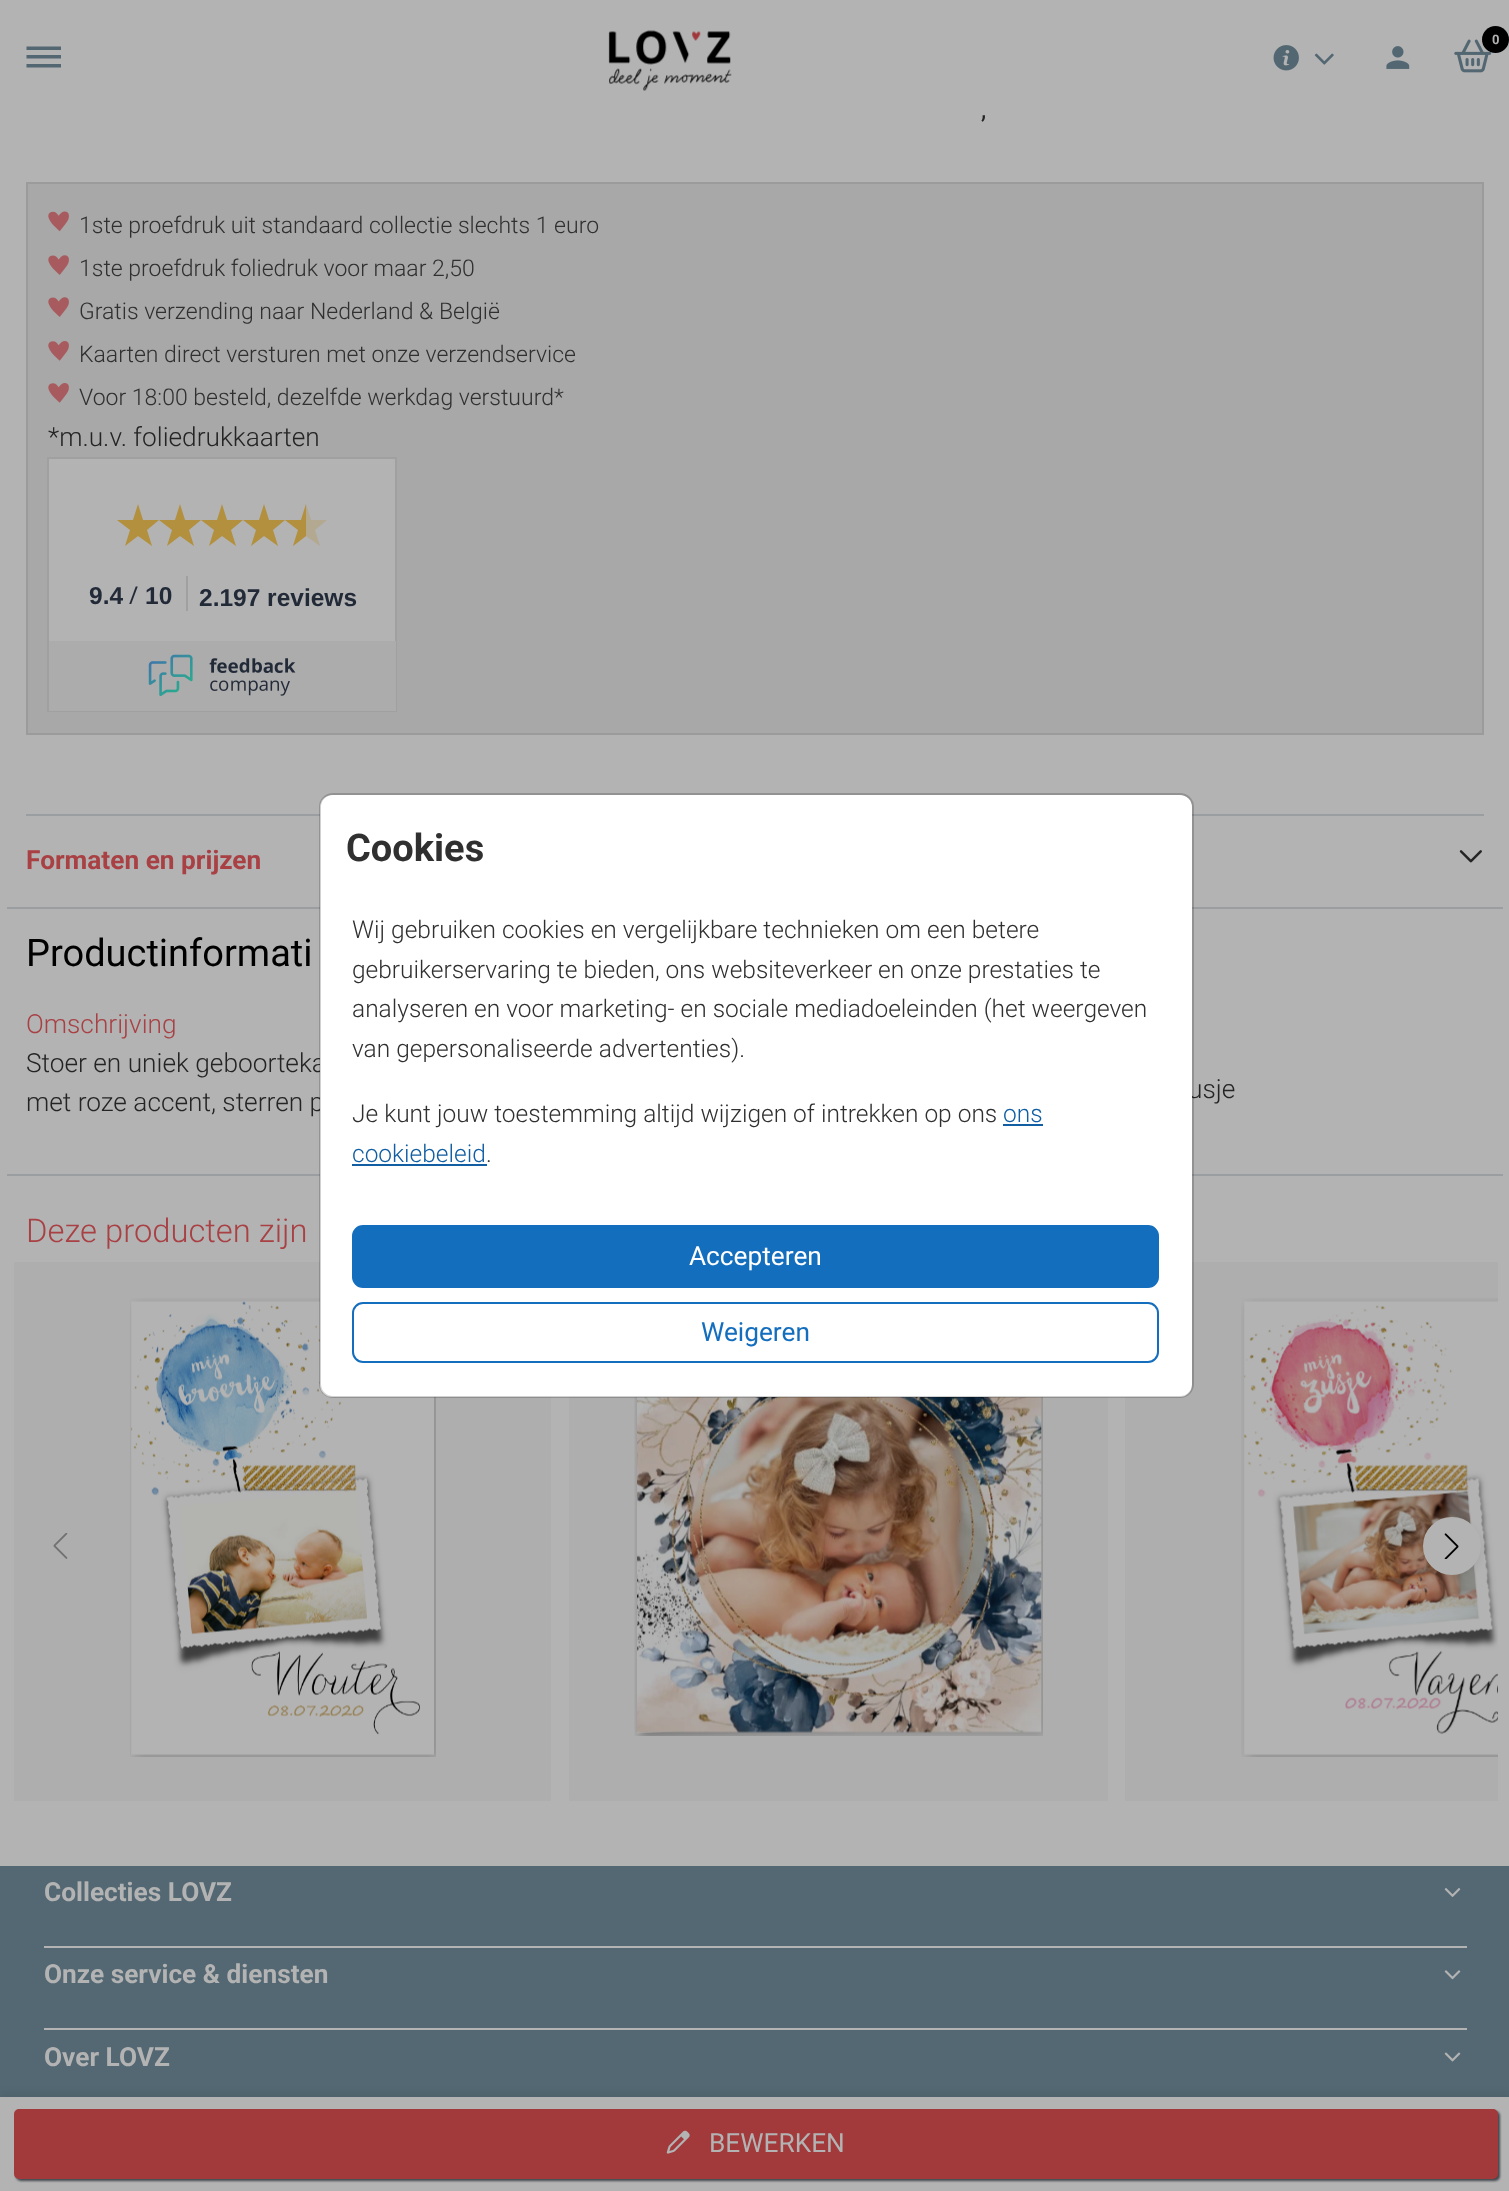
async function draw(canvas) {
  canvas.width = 1509
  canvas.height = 2191
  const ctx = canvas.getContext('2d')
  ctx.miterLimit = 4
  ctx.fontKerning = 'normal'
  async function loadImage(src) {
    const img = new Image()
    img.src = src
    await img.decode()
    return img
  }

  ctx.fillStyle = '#b3b3b3'
  ctx.fillRect(0, 0, 1509, 2191)
  ctx.drawImage(await loadImage('image0.png'), 608, 30, 124, 61)
  ctx.drawImage(await loadImage('image1.png'), 1454, 39, 38, 34)
  ctx.fillStyle = '#000'
  ctx.beginPath()
  ctx.arc(1495.5, 39.5, 13.5, 0, 2 * Math.PI)
  ctx.fill()
  ctx.font = 'bold 13px Roboto'
  ctx.fillStyle = '#b3b3b3'
  ctx.fillText('0', 1492, 44)
  ctx.drawImage(await loadImage('image2.png'), 1386, 46, 24, 23)
  ctx.drawImage(await loadImage('image3.png'), 1273, 45, 26, 26)
  ctx.drawImage(await loadImage('image4.png'), 1314, 53, 20, 12)
  ctx.fillStyle = '#536772'
  ctx.beginPath()
  ctx.moveTo(26.5, 46.5)
  ctx.lineTo(61, 46.5)
  ctx.lineTo(61, 50)
  ctx.lineTo(26.5, 50)
  ctx.closePath()
  ctx.moveTo(26.5, 55)
  ctx.lineTo(61, 55)
  ctx.lineTo(61, 58.5)
  ctx.lineTo(26.5, 58.5)
  ctx.closePath()
  ctx.moveTo(26.5, 64)
  ctx.lineTo(61, 64)
  ctx.lineTo(61, 67.5)
  ctx.lineTo(26.5, 67.5)
  ctx.closePath()
  ctx.fill()
  ctx.font = '26.25px Roboto'
  ctx.fillStyle = '#242424'
  ctx.fillText(',', 981, 118)
  ctx.fillStyle = '#a8a8a8'
  ctx.beginPath()
  ctx.rect(27, 183, 1456, 551)
  ctx.fill()
  ctx.strokeStyle = '#9b9b9b'
  ctx.lineWidth = 2
  ctx.stroke()
  ctx.drawImage(await loadImage('image5.png'), 48, 211, 21, 21)
  ctx.font = '300 23px Roboto'
  ctx.fillStyle = '#303030'
  ctx.fillText('1ste proefdruk uit standaard collectie slechts 1 euro', 79, 233)
  ctx.drawImage(await loadImage('image6.png'), 48, 255, 21, 20)
  ctx.fillText('1ste proefdruk foliedruk voor maar 2,50', 79, 276)
  ctx.drawImage(await loadImage('image6.png'), 48, 297, 21, 20)
  ctx.fillText('Gratis verzending naar Nederland & België', 79, 319)
  ctx.drawImage(await loadImage('image7.png'), 48, 341, 21, 20)
  ctx.fillText('Kaarten direct versturen met onze verzendservice', 79, 362)
  ctx.drawImage(await loadImage('image7.png'), 48, 383, 21, 20)
  ctx.fillText('Voor 18:00 besteld, dezelfde werkdag verstuurd*', 79, 405)
  ctx.font = '300 26.25px Roboto'
  ctx.fillStyle = '#242424'
  ctx.fillText('*m.u.v. foliedrukkaarten', 48, 446)
  ctx.fillStyle = '#b3b3b3'
  ctx.fillRect(49, 459, 346, 182)
  ctx.strokeStyle = '#a0a0a0'
  ctx.strokeRect(48, 458, 348, 253)
  ctx.fillStyle = '#b2903e'
  ctx.beginPath()
  ctx.moveTo(152, 546)
  ctx.lineTo(147, 530)
  ctx.lineTo(159, 520)
  ctx.lineTo(143, 520)
  ctx.lineTo(138, 504)
  ctx.lineTo(133, 520)
  ctx.lineTo(117, 520)
  ctx.lineTo(130, 530)
  ctx.lineTo(125, 546)
  ctx.lineTo(138, 536)
  ctx.closePath()
  ctx.fill()
  ctx.beginPath()
  ctx.moveTo(194, 546)
  ctx.lineTo(189, 530)
  ctx.lineTo(201, 520)
  ctx.lineTo(185, 520)
  ctx.lineTo(180, 504)
  ctx.lineTo(175, 520)
  ctx.lineTo(159, 520)
  ctx.lineTo(172, 530)
  ctx.lineTo(167, 546)
  ctx.lineTo(180, 536)
  ctx.closePath()
  ctx.fill()
  ctx.beginPath()
  ctx.moveTo(236, 546)
  ctx.lineTo(231, 530)
  ctx.lineTo(243, 520)
  ctx.lineTo(227, 520)
  ctx.lineTo(222, 504)
  ctx.lineTo(217, 520)
  ctx.lineTo(201, 520)
  ctx.lineTo(214, 530)
  ctx.lineTo(209, 546)
  ctx.lineTo(222, 536)
  ctx.closePath()
  ctx.fill()
  ctx.beginPath()
  ctx.moveTo(278, 546)
  ctx.lineTo(273, 530)
  ctx.lineTo(285, 520)
  ctx.lineTo(269, 520)
  ctx.lineTo(264, 504)
  ctx.lineTo(259, 520)
  ctx.lineTo(243, 520)
  ctx.lineTo(256, 530)
  ctx.lineTo(251, 546)
  ctx.lineTo(264, 536)
  ctx.closePath()
  ctx.fill()
  ctx.fillStyle = '#b3a890'
  ctx.beginPath()
  ctx.moveTo(320, 546)
  ctx.lineTo(315, 530)
  ctx.lineTo(327, 520)
  ctx.lineTo(311, 520)
  ctx.lineTo(306, 504)
  ctx.lineTo(301, 520)
  ctx.lineTo(285, 520)
  ctx.lineTo(298, 530)
  ctx.lineTo(293, 546)
  ctx.lineTo(306, 536)
  ctx.closePath()
  ctx.fill()
  ctx.save()
  ctx.beginPath()
  ctx.rect(285, 504, 21, 42)
  ctx.clip()
  ctx.fillStyle = '#b2903e'
  ctx.beginPath()
  ctx.moveTo(320, 546)
  ctx.lineTo(315, 530)
  ctx.lineTo(327, 520)
  ctx.lineTo(311, 520)
  ctx.lineTo(306, 504)
  ctx.lineTo(301, 520)
  ctx.lineTo(285, 520)
  ctx.lineTo(298, 530)
  ctx.lineTo(293, 546)
  ctx.lineTo(306, 536)
  ctx.closePath()
  ctx.fill()
  ctx.restore()
  ctx.font = 'bold 24.5px Liberation Sans'
  ctx.fillStyle = '#222a38'
  ctx.fillText('9.4', 89, 604)
  ctx.font = '24.5px Open Sans'
  ctx.fillText('/', 129, 604)
  ctx.font = 'bold 24.5px Liberation Sans'
  ctx.fillText('10', 145, 604)
  ctx.fillStyle = '#a0a0a0'
  ctx.fillRect(186, 576, 2, 35)
  ctx.fillStyle = '#222a38'
  ctx.fillText('2.197 reviews', 199, 606)
  ctx.fillStyle = '#acacac'
  ctx.fillRect(49, 641, 347, 70)
  ctx.drawImage(await loadImage('image8.png'), 148, 654, 148, 43)
  ctx.fillStyle = '#9b9ea1'
  ctx.fillRect(26, 814, 1458, 2)
  ctx.font = 'bold 26.25px Roboto'
  ctx.fillStyle = '#a84044'
  ctx.fillText('Formaten en prijzen', 26, 869)
  ctx.drawImage(await loadImage('image9.png'), 1459, 850, 23, 13)
  ctx.fillStyle = '#9b9ea1'
  ctx.fillRect(7, 907, 1496, 2)
  ctx.fillRect(7, 1174, 1496, 2)
  ctx.font = '38px Roboto'
  ctx.fillStyle = '#000'
  ctx.fillText('Productinformati', 26, 966)
  ctx.font = '300 26.25px Roboto'
  ctx.fillStyle = '#a84044'
  ctx.fillText('Omschrijving', 26, 1033)
  ctx.fillStyle = '#242424'
  ctx.fillText('Stoer en uniek geboorteka', 26, 1072)
  ctx.fillText('met roze accent, sterren p', 26, 1111)
  ctx.fillText('usje', 1188, 1098)
  ctx.font = '300 32.75px Roboto'
  ctx.fillStyle = '#a84044'
  ctx.fillText('Deze producten zijn', 26, 1242)
  ctx.fillStyle = '#aeaeaf'
  ctx.fillRect(14, 1262, 537, 539)
  ctx.drawImage(await loadImage('image10.png'), 130, 1298, 306, 459)
  ctx.fillRect(569, 1792, 539, 9)
  ctx.beginPath()
  ctx.roundRect(569, 1262, 539, 539, 9)
  ctx.fill()
  ctx.drawImage(await loadImage('image12.png'), 635, 1397, 220, 339)
  ctx.drawImage(await loadImage('image11.png'), 634, 1397, 409, 339)
  ctx.fillRect(1125, 1792, 9, 9)
  ctx.beginPath()
  ctx.roundRect(1125, 1262, 373, 539, [9, 0, 0, 9])
  ctx.fill()
  ctx.drawImage(await loadImage('image13.png'), 1241, 1298, 257, 459)
  ctx.drawImage(await loadImage('image14.png'), 53, 1533, 15, 26)
  ctx.fillStyle = '#00000012'
  ctx.filter = 'blur(3.5px)'
  ctx.beginPath()
  ctx.roundRect(1423, 1521, 58, 58, 29)
  ctx.fill()
  ctx.filter = 'none'
  ctx.fillStyle = '#b3b3b3'
  ctx.beginPath()
  ctx.arc(1452, 1546, 21, 0, 2 * Math.PI)
  ctx.fill()
  ctx.strokeStyle = '#b3b3b3'
  ctx.lineWidth = 16
  ctx.stroke()
  ctx.drawImage(await loadImage('image15.png'), 1444, 1533, 15, 26)
  ctx.fillStyle = '#536873'
  ctx.fillRect(0, 1866, 1509, 231)
  ctx.fillStyle = '#12121212'
  ctx.filter = 'blur(3.5px)'
  ctx.beginPath()
  ctx.rect(0, 2093, 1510, 95)
  ctx.fill()
  ctx.filter = 'none'
  ctx.fillStyle = '#b3b3b3'
  ctx.fillRect(0, 2097, 1509, 94)
  ctx.fillStyle = '#0b121dab'
  ctx.filter = 'blur(1px)'
  ctx.beginPath()
  ctx.roundRect(16, 2111, 1484, 70, 5)
  ctx.fill()
  ctx.filter = 'none'
  ctx.fillStyle = '#a2393b'
  ctx.beginPath()
  ctx.roundRect(15, 2110, 1482, 68, 4)
  ctx.fill()
  ctx.strokeStyle = '#a2393b'
  ctx.lineWidth = 2
  ctx.stroke()
  ctx.drawImage(await loadImage('image16.png'), 666, 2130, 24, 24)
  ctx.font = '26.25px Roboto'
  ctx.fillStyle = '#b3b3b3'
  ctx.fillText('BEWERKEN', 709, 2152)
  ctx.fillStyle = '#fff'
  ctx.beginPath()
  ctx.roundRect(320, 795, 872, 602, 12)
  ctx.fill()
  ctx.beginPath()
  ctx.roundRect(320, 794, 873, 603, 13)
  ctx.strokeStyle = '#0000002e'
  ctx.stroke()
  ctx.font = 'bold 38px Roboto'
  ctx.fillStyle = '#303030'
  ctx.fillText('Cookies', 346, 861)
  ctx.font = '300 24.5px Roboto'
  ctx.fillText('Wij gebruiken cookies en vergelijkbare technieken om een betere', 352, 938)
  ctx.fillText('gebruikerservaring te bieden, ons websiteverkeer en onze prestaties te', 352, 978)
  ctx.fillText('analyseren en voor marketing- en sociale mediadoeleinden (het weergeven', 352, 1017)
  ctx.fillText('van gepersonaliseerde advertenties).', 352, 1057)
  ctx.fillText('Je kunt jouw toestemming altijd wijzigen of intrekken op ons', 352, 1122)
  ctx.fillStyle = '#115ea2'
  ctx.fillText('ons', 1003, 1122)
  ctx.fillRect(1003, 1124, 40, 2)
  ctx.fillText('cookiebeleid', 352, 1162)
  ctx.fillRect(352, 1164, 135, 2)
  ctx.fillStyle = '#303030'
  ctx.fillText('.', 486, 1162)
  ctx.fillStyle = '#146ebe'
  ctx.beginPath()
  ctx.roundRect(353, 1226, 805, 61, 10)
  ctx.fill()
  ctx.strokeStyle = '#146ebe'
  ctx.stroke()
  ctx.font = '26.25px Roboto'
  ctx.fillStyle = '#fff'
  ctx.fillText('Accepteren', 689, 1265)
  ctx.beginPath()
  ctx.roundRect(353, 1303, 805, 59, 10)
  ctx.stroke()
  ctx.fillStyle = '#146ebe'
  ctx.fillText('Weigeren', 701, 1341)
  ctx.fillStyle = '#b3b3b3'
  ctx.fillRect(44, 1946, 1423, 2)
  ctx.font = 'bold 26.25px Roboto'
  ctx.fillText('Collecties LOVZ', 44, 1901)
  ctx.drawImage(await loadImage('image17.png'), 1444, 1888, 17, 9)
  ctx.fillRect(44, 2028, 1423, 2)
  ctx.fillText('Onze service & diensten', 44, 1983)
  ctx.drawImage(await loadImage('image18.png'), 1444, 1970, 17, 10)
  ctx.fillText('Over LOVZ', 44, 2066)
  ctx.drawImage(await loadImage('image19.png'), 1444, 2052, 17, 10)
}

draw(document.querySelector('canvas'))
